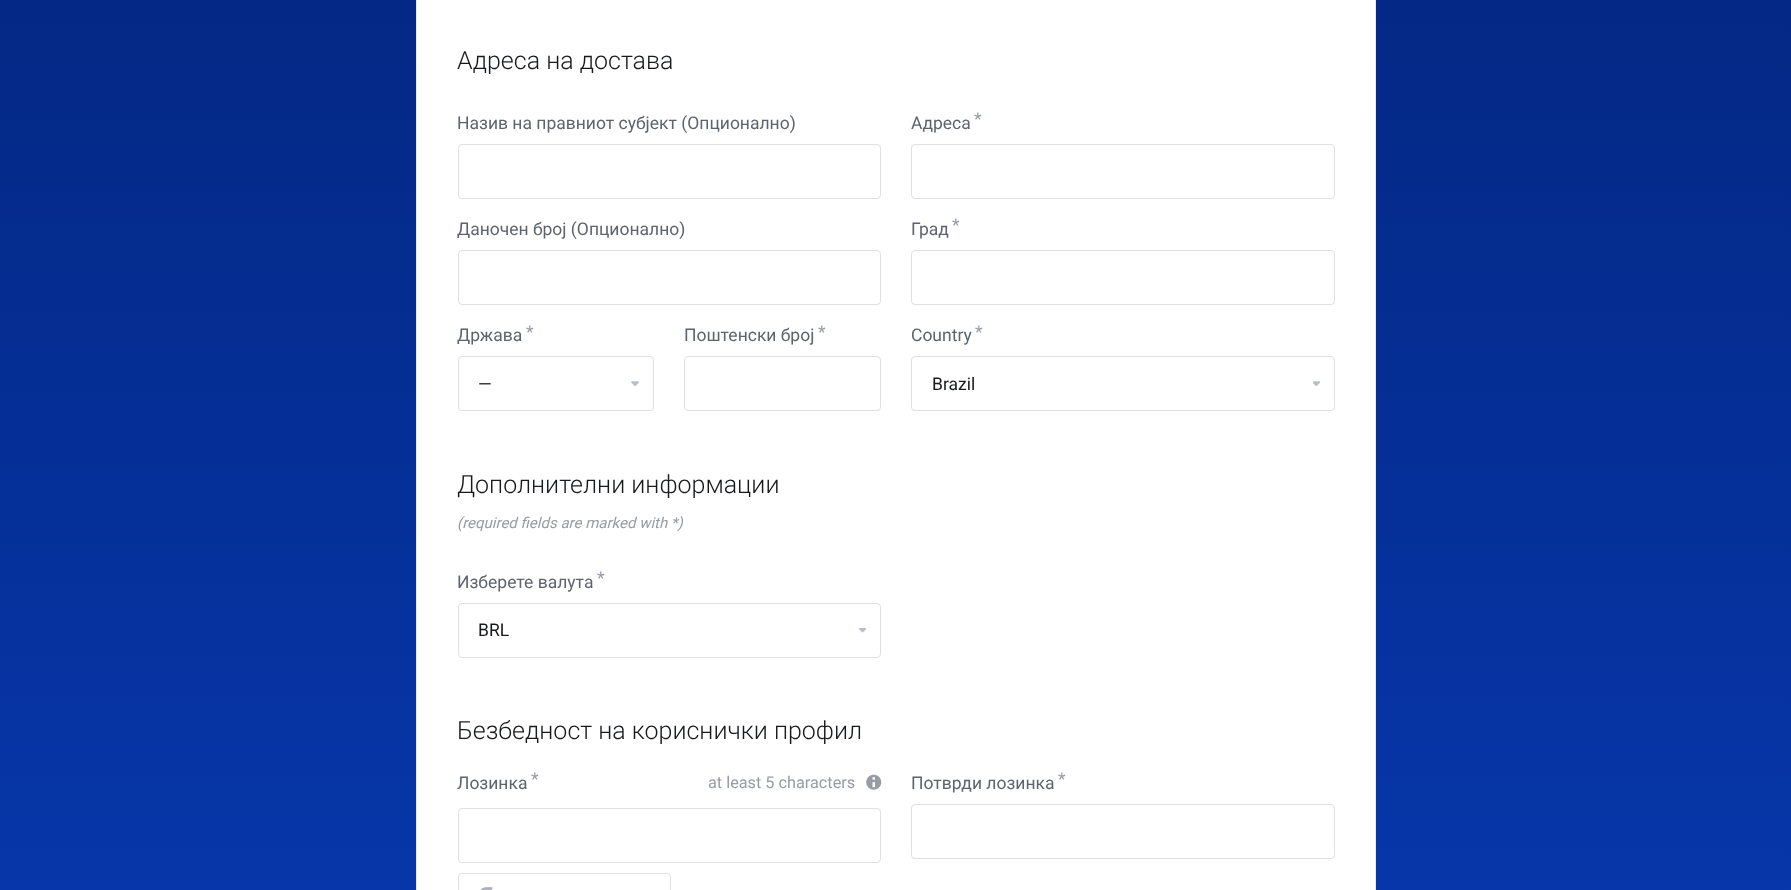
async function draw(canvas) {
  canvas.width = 1791
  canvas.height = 890
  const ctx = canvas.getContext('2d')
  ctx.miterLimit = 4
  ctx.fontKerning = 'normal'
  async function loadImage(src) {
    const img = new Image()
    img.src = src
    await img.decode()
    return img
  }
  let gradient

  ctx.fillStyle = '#fff'
  ctx.fillRect(0, 0, 1791, 890)
  gradient = ctx.createLinearGradient(896, 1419, 896, -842)
  gradient.addColorStop(0, '#083fbf')
  gradient.addColorStop(1, '#011a62')
  ctx.fillStyle = gradient
  ctx.fillRect(0, 0, 1791, 890)
  ctx.fillStyle = '#fff'
  ctx.beginPath()
  ctx.rect(416.5, -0.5, 959, 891)
  ctx.fill()
  ctx.strokeStyle = '#e9eaec'
  ctx.stroke()
  ctx.font = '300 25px Roboto'
  ctx.fillStyle = '#17191c'
  ctx.fillText('Адреса на достава', 457, 69)
  ctx.font = '17.5px Roboto'
  ctx.fillStyle = '#5e636e'
  ctx.fillText('Назив на правниот субјект (Опционално)', 457, 129)
  ctx.beginPath()
  ctx.roundRect(458.5, 144.5, 422, 54, 3.5)
  ctx.strokeStyle = '#dee0e3'
  ctx.stroke()
  ctx.fillText('Адреса', 911, 129)
  ctx.fillStyle = '#979ba4'
  ctx.fillText('*', 974, 125)
  ctx.beginPath()
  ctx.roundRect(911.5, 144.5, 423, 54, 3.5)
  ctx.stroke()
  ctx.fillStyle = '#5e636e'
  ctx.fillText('Даночен број (Опционално)', 457, 235)
  ctx.beginPath()
  ctx.roundRect(458.5, 250.5, 422, 54, 3.5)
  ctx.stroke()
  ctx.fillText('Град', 911, 235)
  ctx.fillStyle = '#979ba4'
  ctx.fillText('*', 952, 231)
  ctx.beginPath()
  ctx.roundRect(911.5, 250.5, 423, 54, 3.5)
  ctx.stroke()
  ctx.fillStyle = '#5e636e'
  ctx.fillText('Држава', 457, 341)
  ctx.fillStyle = '#979ba4'
  ctx.fillText('*', 526, 338)
  ctx.drawImage(await loadImage('image0.png'), 631, 381, 8, 5)
  ctx.beginPath()
  ctx.roundRect(458.5, 356.5, 195, 54, 3.5)
  ctx.stroke()
  ctx.fillStyle = '#17191c'
  ctx.fillText('—', 478, 390)
  ctx.fillStyle = '#5e636e'
  ctx.fillText('Поштенски број', 684, 341)
  ctx.fillStyle = '#979ba4'
  ctx.fillText('*', 818, 338)
  ctx.beginPath()
  ctx.roundRect(684.5, 356.5, 196, 54, 3.5)
  ctx.stroke()
  ctx.fillStyle = '#5e636e'
  ctx.fillText('Country', 911, 341)
  ctx.fillStyle = '#979ba4'
  ctx.fillText('*', 975, 338)
  ctx.drawImage(await loadImage('image1.png'), 1313, 381, 7, 5)
  ctx.beginPath()
  ctx.roundRect(911.5, 356.5, 423, 54, 3.5)
  ctx.stroke()
  ctx.fillStyle = '#17191c'
  ctx.fillText('Brazil', 932, 390)
  ctx.font = '300 25px Roboto'
  ctx.fillText('Дополнителни информации', 457, 493)
  ctx.font = 'italic 15px Roboto'
  ctx.fillStyle = '#979ba4'
  ctx.fillText('(required fields are marked with *)', 457, 528)
  ctx.font = '17.5px Roboto'
  ctx.fillStyle = '#5e636e'
  ctx.fillText('Изберете валута', 457, 588)
  ctx.fillStyle = '#979ba4'
  ctx.fillText('*', 597, 584)
  ctx.drawImage(await loadImage('image2.png'), 859, 628, 7, 5)
  ctx.beginPath()
  ctx.roundRect(458.5, 603.5, 422, 54, 3.5)
  ctx.stroke()
  ctx.fillStyle = '#17191c'
  ctx.fillText('BRL', 478, 636)
  ctx.font = '300 25px Roboto'
  ctx.fillText('Безбедност на кориснички профил', 457, 739)
  ctx.font = '17.5px Roboto'
  ctx.fillStyle = '#5e636e'
  ctx.fillText('Лозинка', 457, 789)
  ctx.fillStyle = '#979ba4'
  ctx.fillText('*', 531, 785)
  ctx.font = '16.25px Roboto'
  ctx.fillText('at least 5 characters', 708, 788)
  ctx.drawImage(await loadImage('image3.png'), 866, 774, 16, 16)
  ctx.beginPath()
  ctx.roundRect(458.5, 808.5, 422, 54, 3.5)
  ctx.stroke()
  ctx.beginPath()
  ctx.roundRect(458.5, 873.5, 212, 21, 3.5)
  ctx.stroke()
  ctx.drawImage(await loadImage('image4.png'), 480, 887, 13, 3)
  ctx.font = '17.5px Roboto'
  ctx.fillStyle = '#5e636e'
  ctx.fillText('Потврди лозинка', 911, 789)
  ctx.fillStyle = '#979ba4'
  ctx.fillText('*', 1058, 785)
  ctx.beginPath()
  ctx.roundRect(911.5, 804.5, 423, 54, 3.5)
  ctx.stroke()
}

draw(document.querySelector('canvas'))
